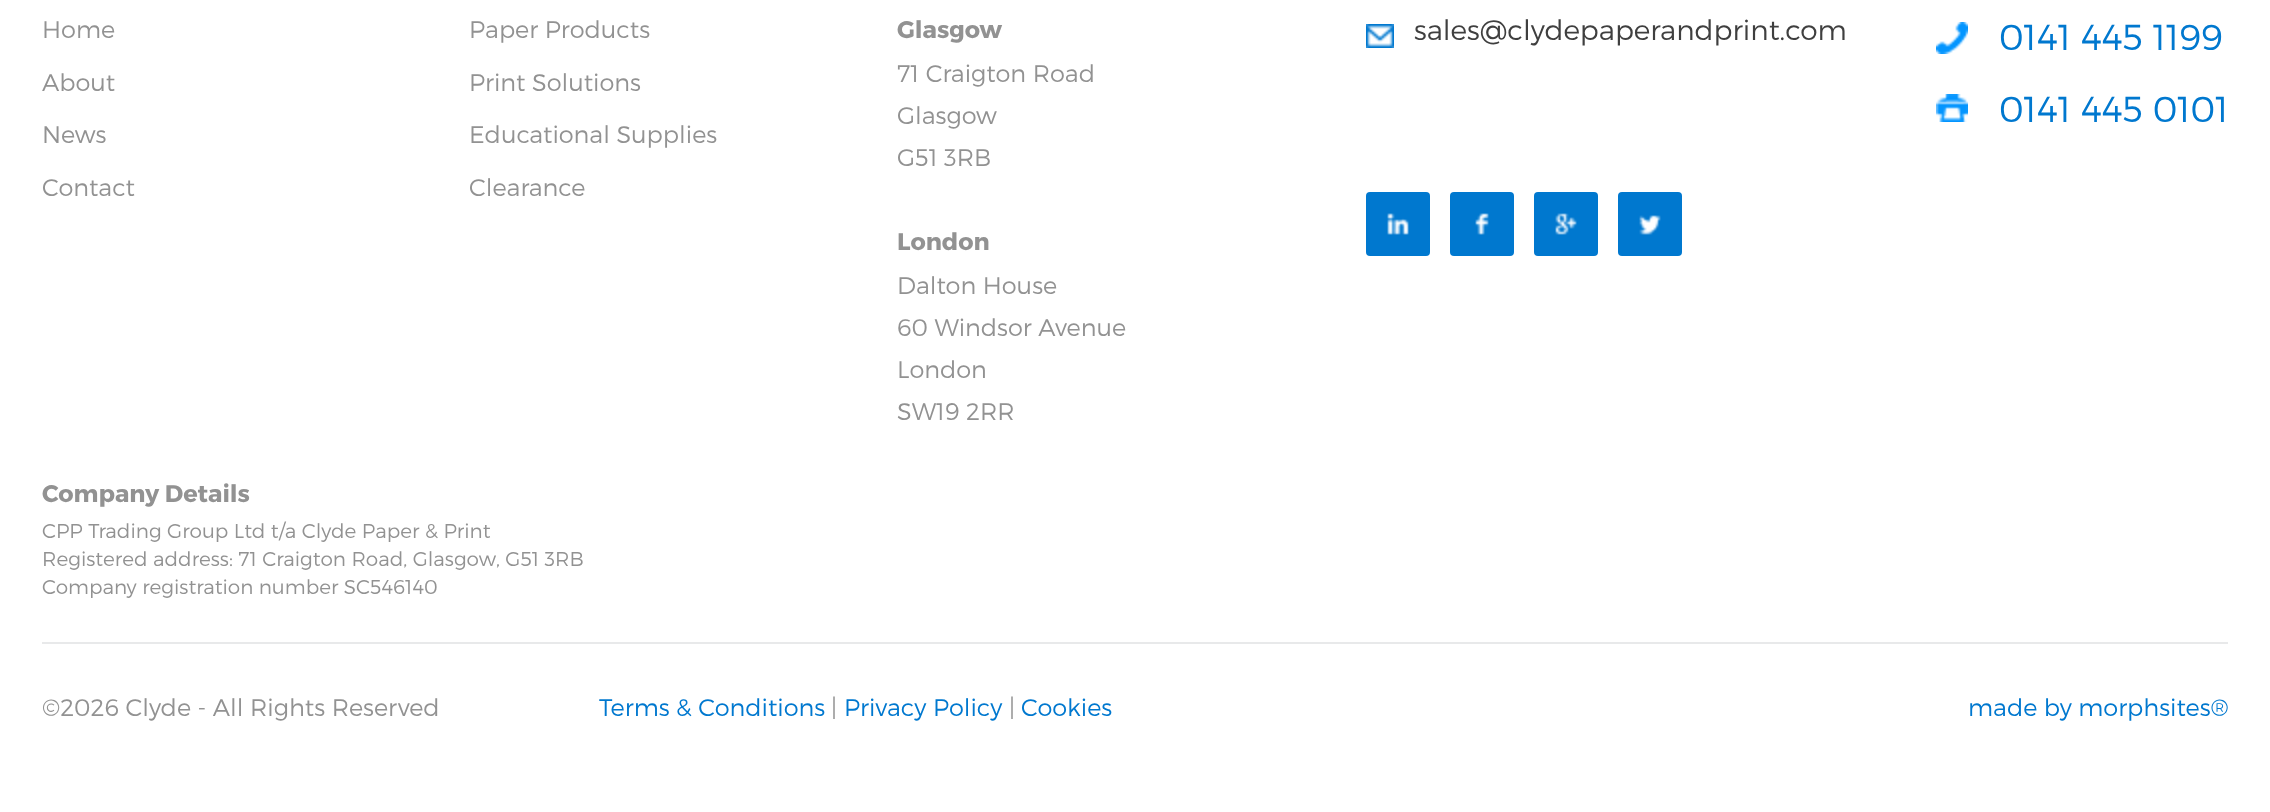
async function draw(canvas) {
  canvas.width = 2270
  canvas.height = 812
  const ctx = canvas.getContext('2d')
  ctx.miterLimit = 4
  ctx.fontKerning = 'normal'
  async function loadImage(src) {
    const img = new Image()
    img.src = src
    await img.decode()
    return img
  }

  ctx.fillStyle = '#fff'
  ctx.fillRect(0, 0, 2270, 812)
  ctx.font = '300 24px Montserrat'
  ctx.fillStyle = '#929292'
  ctx.fillText('Home', 42, 38)
  ctx.fillText('About', 42, 91)
  ctx.fillText('News', 42, 143)
  ctx.fillText('Contact', 42, 196)
  ctx.fillText('Paper Products', 469, 38)
  ctx.fillText('Print Solutions', 469, 91)
  ctx.fillText('Educational Supplies', 469, 143)
  ctx.fillText('Clearance', 469, 196)
  ctx.font = 'bold 24px Montserrat'
  ctx.fillText('Glasgow', 897, 38)
  ctx.font = '300 24px Montserrat'
  ctx.fillText('71 Craigton Road', 897, 82)
  ctx.fillText('Glasgow', 897, 124)
  ctx.fillText('G51 3RB', 897, 166)
  ctx.font = 'bold 24px Montserrat'
  ctx.fillText('London', 897, 250)
  ctx.font = '300 24px Montserrat'
  ctx.fillText('Dalton House', 897, 294)
  ctx.fillText('60 Windsor Avenue', 897, 336)
  ctx.fillText('London', 897, 378)
  ctx.fillText('SW19 2RR', 897, 420)
  ctx.font = 'bold 24px Montserrat'
  ctx.fillText('Company Details', 42, 502)
  ctx.font = '300 20px Montserrat'
  ctx.fillText('CPP Trading Group Ltd t/a Clyde Paper & Print', 42, 538)
  ctx.fillText('Registered address: 71 Craigton Road, Glasgow, G51 3RB', 42, 566)
  ctx.fillText('Company registration number SC546140', 42, 594)
  ctx.drawImage(await loadImage('image0.png'), 1366, 24, 28, 24)
  ctx.font = '300 28px Montserrat'
  ctx.fillStyle = '#3f3f3f'
  ctx.fillText('sales@clydepaperandprint.com', 1414, 40)
  ctx.drawImage(await loadImage('image1.png'), 1936, 22, 32, 32)
  ctx.font = '300 36px Montserrat'
  ctx.fillStyle = '#0078cf'
  ctx.fillText('0141 445 1199', 1999, 50)
  ctx.drawImage(await loadImage('image2.png'), 1936, 94, 32, 28)
  ctx.fillText('0141 445 0101', 1999, 122)
  ctx.beginPath()
  ctx.roundRect(1366, 192, 64, 64, 4)
  ctx.fill()
  ctx.drawImage(await loadImage('image3.png'), 1387, 213, 22, 22)
  ctx.beginPath()
  ctx.roundRect(1450, 192, 64, 64, 4)
  ctx.fill()
  ctx.drawImage(await loadImage('image4.png'), 1475, 213, 14, 22)
  ctx.beginPath()
  ctx.roundRect(1534, 192, 64, 64, 4)
  ctx.fill()
  ctx.drawImage(await loadImage('image5.png'), 1555, 213, 22, 22)
  ctx.beginPath()
  ctx.roundRect(1618, 192, 64, 64, 4)
  ctx.fill()
  ctx.drawImage(await loadImage('image6.png'), 1639, 215, 22, 20)
  ctx.fillStyle = '#e8e9ea'
  ctx.fillRect(42, 642, 2186, 2)
  ctx.font = '300 24px Montserrat'
  ctx.fillStyle = '#929292'
  ctx.fillText('©2026 Clyde - All Rights Reserved', 42, 716)
  ctx.fillStyle = '#0078cf'
  ctx.fillText('Terms & Conditions', 599, 716)
  ctx.fillStyle = '#929292'
  ctx.fillText('|', 831, 716)
  ctx.fillStyle = '#0078cf'
  ctx.fillText('Privacy Policy', 844, 716)
  ctx.fillStyle = '#929292'
  ctx.fillText('|', 1009, 716)
  ctx.fillStyle = '#0078cf'
  ctx.fillText('Cookies', 1021, 716)
  ctx.fillText('made by morphsites®', 1968, 716)
}

draw(document.querySelector('canvas'))
